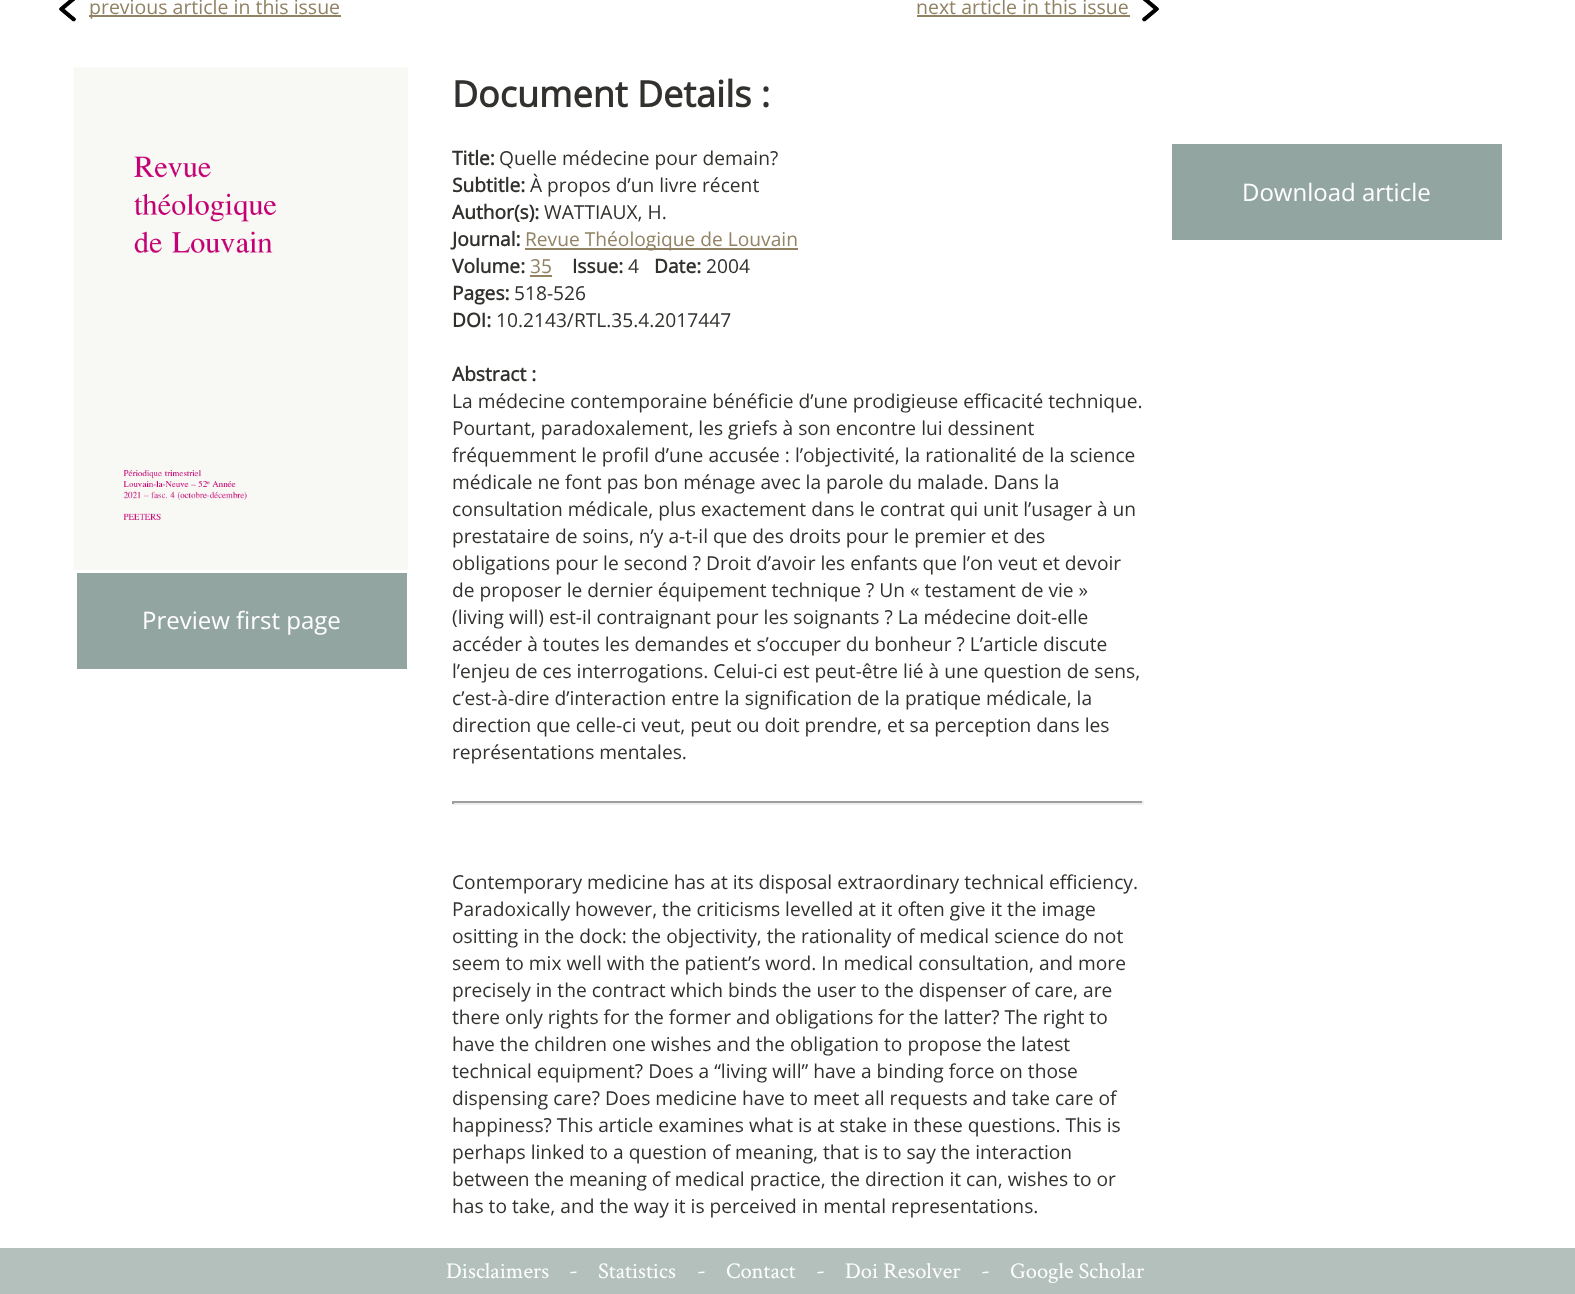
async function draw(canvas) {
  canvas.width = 1575
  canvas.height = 1294
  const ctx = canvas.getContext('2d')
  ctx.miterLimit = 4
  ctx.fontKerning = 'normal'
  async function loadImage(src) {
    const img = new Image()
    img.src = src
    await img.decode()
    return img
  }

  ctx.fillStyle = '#fff'
  ctx.fillRect(0, 0, 1575, 1294)
  ctx.drawImage(await loadImage('image0.png'), 59, 0, 17, 22)
  ctx.fillStyle = '#908263'
  ctx.fillRect(89, 15, 252, 2)
  ctx.font = '19.5px Open Sans'
  ctx.fillText('previous article in this issue', 89, 14)
  ctx.fillText('next article in this issue', 916, 14)
  ctx.fillRect(917, 15, 213, 2)
  ctx.drawImage(await loadImage('image1.png'), 1142, 0, 17, 22)
  ctx.font = 'bold 36px Open Sans'
  ctx.fillStyle = '#32312e'
  ctx.fillText('Document Details :', 452, 107)
  ctx.font = 'bold 19.2px Open Sans'
  ctx.fillText('Title:', 452, 165)
  ctx.font = '19.2px Open Sans'
  ctx.fillText('Quelle médecine pour demain?', 499, 165)
  ctx.font = 'bold 19.2px Open Sans'
  ctx.fillText('Subtitle:', 452, 192)
  ctx.font = '19.2px Open Sans'
  ctx.fillText('À propos d’un livre récent', 530, 192)
  ctx.font = 'bold 19.2px Open Sans'
  ctx.fillText('Author(s):', 452, 219)
  ctx.font = '19.2px Open Sans'
  ctx.fillText('WATTIAUX, H.', 544, 219)
  ctx.font = 'bold 19.2px Open Sans'
  ctx.fillText('Journal:', 452, 246)
  ctx.fillStyle = '#908263'
  ctx.fillRect(525, 248, 273, 2)
  ctx.font = '19.2px Open Sans'
  ctx.fillText('Revue Théologique de Louvain', 525, 246)
  ctx.font = 'bold 19.2px Open Sans'
  ctx.fillStyle = '#32312e'
  ctx.fillText('Volume:', 452, 273)
  ctx.font = '19.2px Open Sans'
  ctx.fillStyle = '#908263'
  ctx.fillText('35', 530, 273)
  ctx.fillRect(530, 275, 22, 2)
  ctx.font = 'bold 19.2px Open Sans'
  ctx.fillStyle = '#32312e'
  ctx.fillText('Issue:', 572, 273)
  ctx.font = '19.2px Open Sans'
  ctx.fillText('4', 628, 273)
  ctx.font = 'bold 19.2px Open Sans'
  ctx.fillText('Date:', 654, 273)
  ctx.font = '19.2px Open Sans'
  ctx.fillText('2004', 706, 273)
  ctx.font = 'bold 19.2px Open Sans'
  ctx.fillText('Pages:', 452, 300)
  ctx.font = '19.2px Open Sans'
  ctx.fillText('518-526', 514, 300)
  ctx.font = 'bold 19.2px Open Sans'
  ctx.fillText('DOI:', 452, 327)
  ctx.font = '19.2px Open Sans'
  ctx.fillText('10.2143/RTL.35.4.2017447', 496, 327)
  ctx.font = 'bold 19.2px Open Sans'
  ctx.fillText('Abstract :', 452, 381)
  ctx.font = '19.2px Open Sans'
  ctx.fillText('La médecine contemporaine bénéficie d’une prodigieuse efficacité technique.', 452, 408)
  ctx.fillText('Pourtant, paradoxalement, les griefs à son encontre lui dessinent', 452, 435)
  ctx.fillText('fréquemment le profil d’une accusée : l’objectivité, la rationalité de la science', 452, 462)
  ctx.fillText('médicale ne font pas bon ménage avec la parole du malade. Dans la', 452, 489)
  ctx.fillText('consultation médicale, plus exactement dans le contrat qui unit l’usager à un', 452, 516)
  ctx.fillText('prestataire de soins, n’y a-t-il que des droits pour le premier et des', 452, 543)
  ctx.fillText('obligations pour le second ? Droit d’avoir les enfants que l’on veut et devoir', 452, 570)
  ctx.fillText('de proposer le dernier équipement technique ? Un « testament de vie »', 452, 597)
  ctx.fillText('(living will) est-il contraignant pour les soignants ? La médecine doit-elle', 452, 624)
  ctx.fillText('accéder à toutes les demandes et s’occuper du bonheur ? L’article discute', 452, 651)
  ctx.fillText('l’enjeu de ces interrogations. Celui-ci est peut-être lié à une question de sens,', 452, 678)
  ctx.fillText('c’est-à-dire d’interaction entre la signification de la pratique médicale, la', 452, 705)
  ctx.fillText('direction que celle-ci veut, peut ou doit prendre, et sa perception dans les', 452, 732)
  ctx.fillText('représentations mentales.', 452, 759)
  ctx.fillStyle = '#9f9f9f'
  ctx.fillRect(452, 801, 691, 2)
  ctx.fillStyle = '#eee'
  ctx.fillRect(1142, 801, 2, 3)
  ctx.fillRect(452, 803, 691, 2)
  ctx.fillStyle = '#9f9f9f'
  ctx.fillRect(452, 801, 2, 3)
  ctx.fillStyle = '#32312e'
  ctx.fillText('Contemporary medicine has at its disposal extraordinary technical efficiency.', 452, 889)
  ctx.fillText('Paradoxically however, the criticisms levelled at it often give it the image', 452, 916)
  ctx.fillText('ositting in the dock: the objectivity, the rationality of medical science do not', 452, 943)
  ctx.fillText('seem to mix well with the patient’s word. In medical consultation, and more', 452, 970)
  ctx.fillText('precisely in the contract which binds the user to the dispenser of care, are', 452, 997)
  ctx.fillText('there only rights for the former and obligations for the latter? The right to', 452, 1024)
  ctx.fillText('have the children one wishes and the obligation to propose the latest', 452, 1051)
  ctx.fillText('technical equipment? Does a “living will” have a binding force on those', 452, 1078)
  ctx.fillText('dispensing care? Does medicine have to meet all requests and take care of', 452, 1105)
  ctx.fillText('happiness? This article examines what is at stake in these questions. This is', 452, 1132)
  ctx.fillText('perhaps linked to a question of meaning, that is to say the interaction', 452, 1159)
  ctx.fillText('between the meaning of medical practice, the direction it can, wishes to or', 452, 1186)
  ctx.fillText('has to take, and the way it is perceived in mental representations.', 452, 1213)
  ctx.fillStyle = '#93a5a0'
  ctx.fillRect(1172, 144, 330, 96)
  ctx.font = '24px Open Sans'
  ctx.fillStyle = '#fff'
  ctx.fillText('Download article', 1242, 201)
  ctx.drawImage(await loadImage('image2.png'), 73, 67, 335, 503)
  ctx.fillStyle = '#93a5a0'
  ctx.fillRect(77, 573, 330, 96)
  ctx.fillStyle = '#fff'
  ctx.fillText('Preview first page', 142, 629)
  ctx.fillStyle = '#b3c0bc'
  ctx.fillRect(0, 1248, 1575, 46)
  ctx.font = '22.5px Crimson Text'
  ctx.fillStyle = '#fff'
  ctx.fillText('Disclaimers', 446, 1278)
  ctx.font = '24px Crimson Text'
  ctx.fillText('-', 569, 1278)
  ctx.font = '22.5px Crimson Text'
  ctx.fillText('Statistics', 598, 1278)
  ctx.font = '24px Crimson Text'
  ctx.fillText('-', 697, 1278)
  ctx.font = '22.5px Crimson Text'
  ctx.fillText('Contact', 726, 1278)
  ctx.font = '24px Crimson Text'
  ctx.fillText('-', 816, 1278)
  ctx.font = '22.5px Crimson Text'
  ctx.fillText('Doi Resolver', 845, 1278)
  ctx.font = '24px Crimson Text'
  ctx.fillText('-', 981, 1278)
  ctx.font = '22.5px Crimson Text'
  ctx.fillText('Google Scholar', 1010, 1278)
}

draw(document.querySelector('canvas'))
